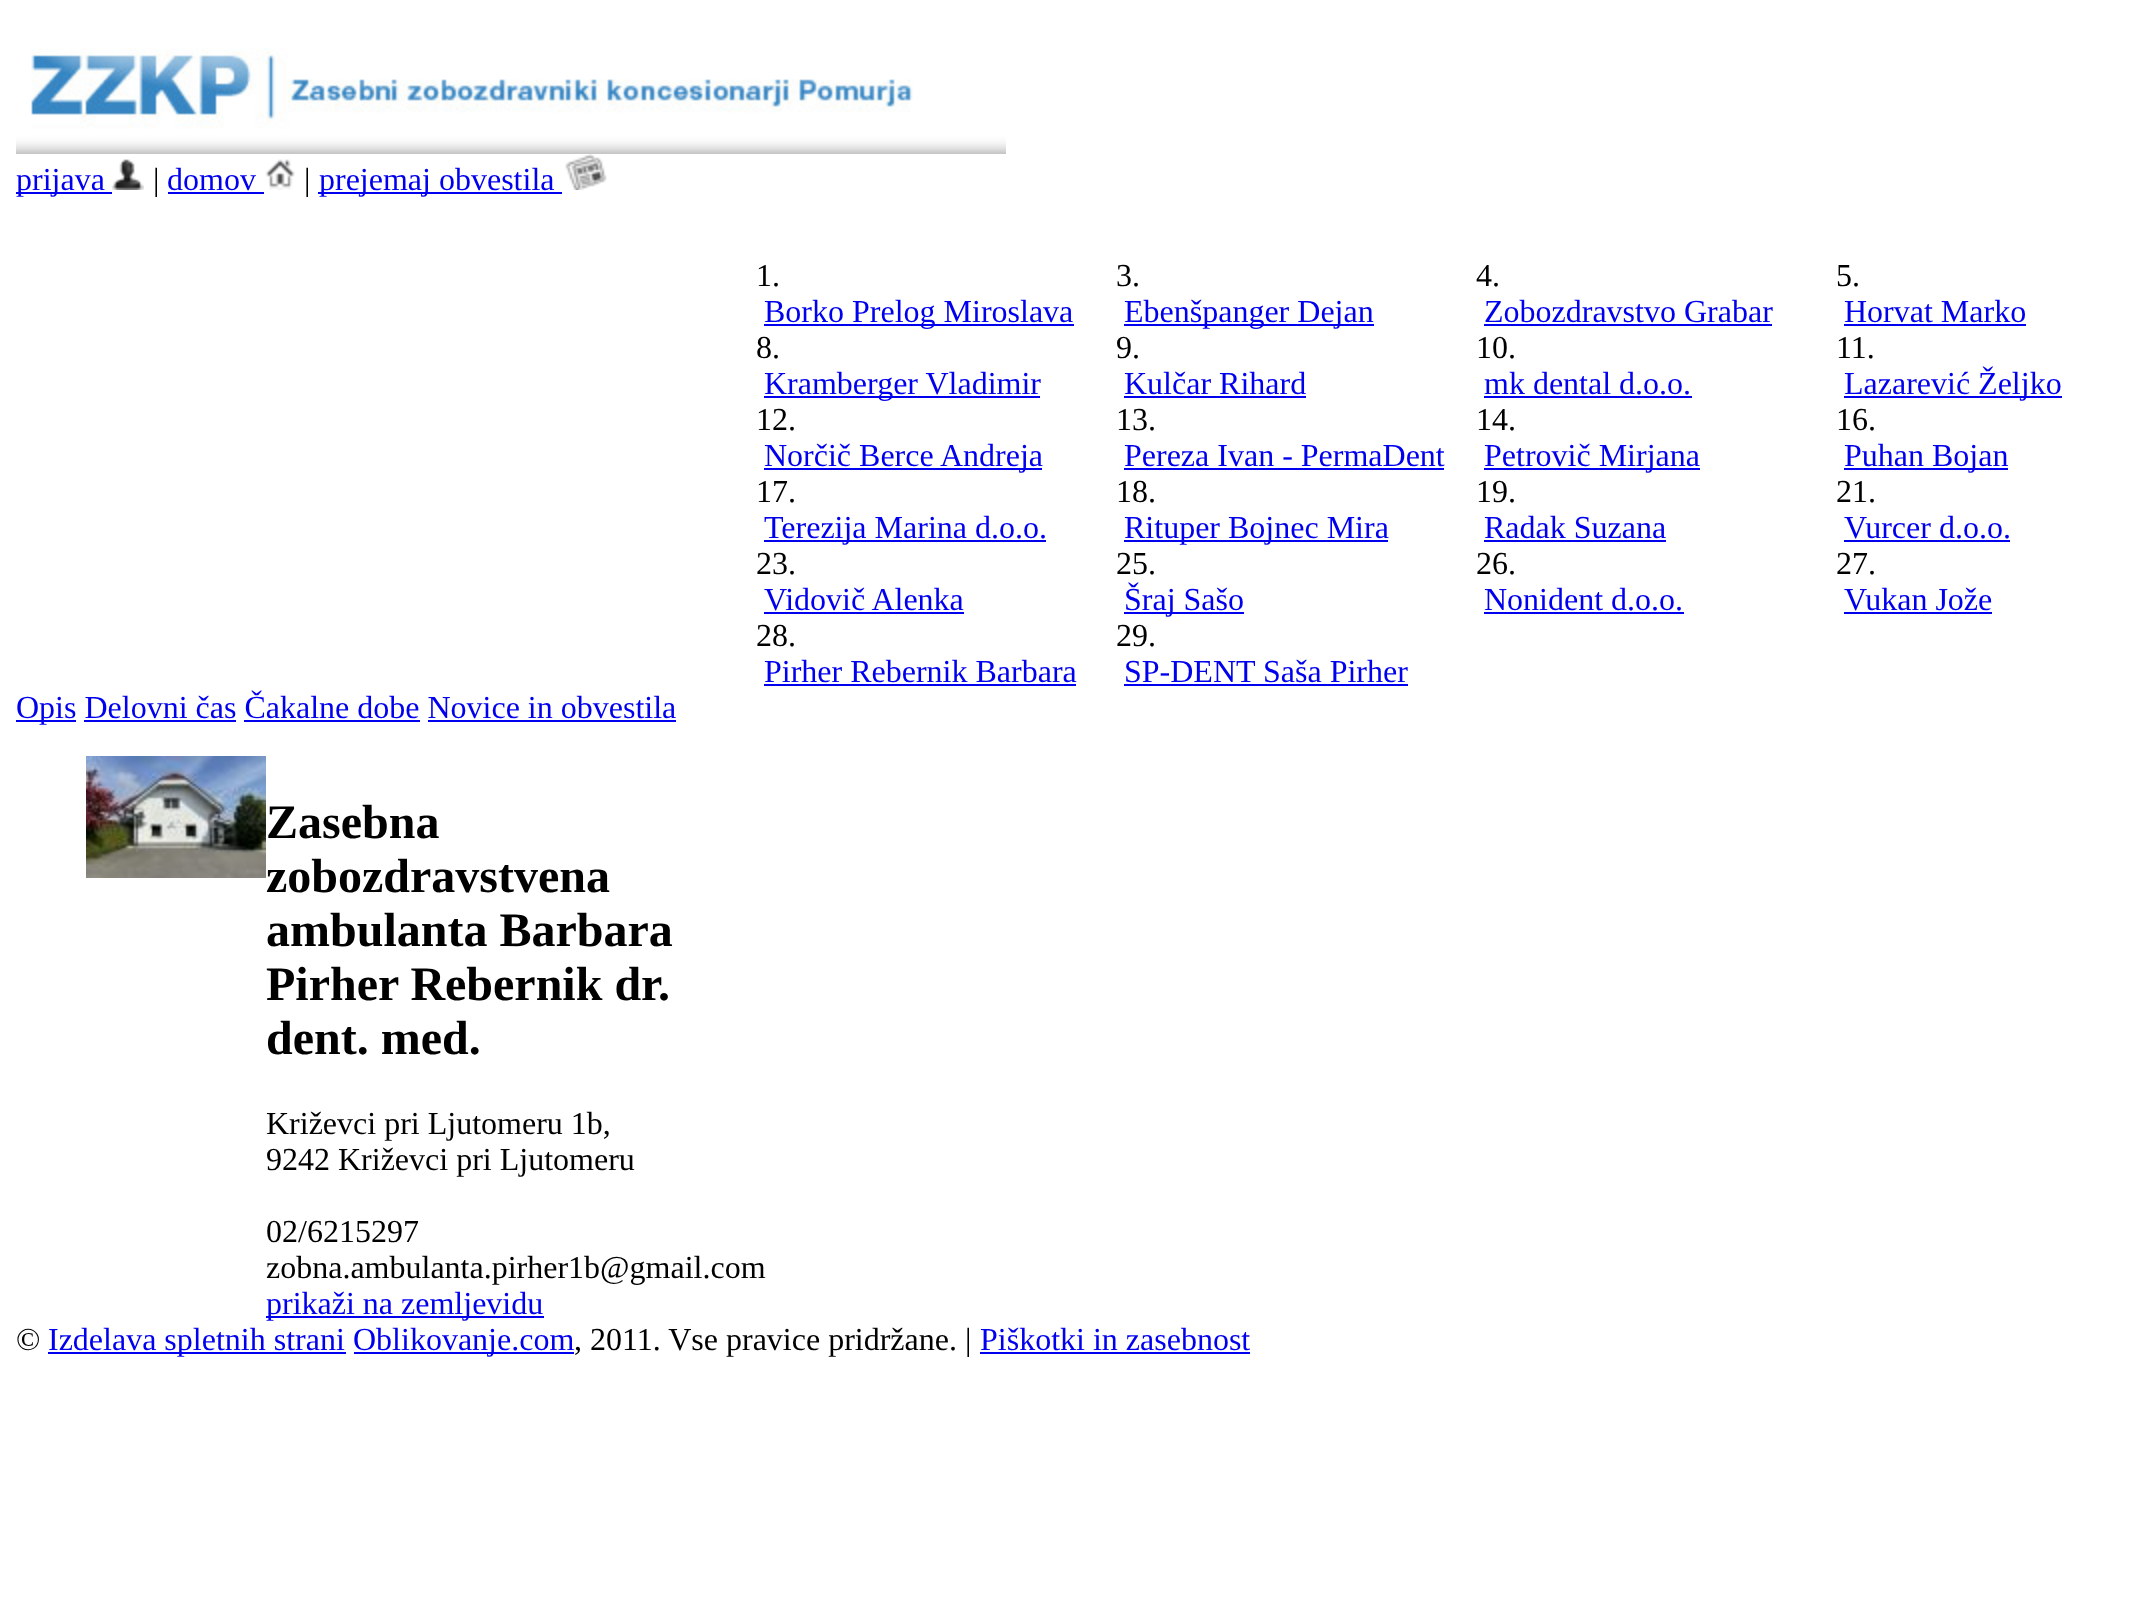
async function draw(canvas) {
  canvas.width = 2129
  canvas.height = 1618
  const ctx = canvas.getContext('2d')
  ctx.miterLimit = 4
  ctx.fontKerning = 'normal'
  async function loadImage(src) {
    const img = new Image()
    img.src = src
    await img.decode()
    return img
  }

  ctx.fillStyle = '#fff'
  ctx.fillRect(0, 0, 2129, 1618)
  ctx.drawImage(await loadImage('image0.png'), 16, 48, 990, 106)
  ctx.fillStyle = '#00e'
  ctx.fillRect(16, 192, 96, 2)
  ctx.font = '32px Liberation Serif'
  ctx.fillText('prijava', 16, 190)
  ctx.drawImage(await loadImage('image1.png'), 112, 159, 32, 31)
  ctx.fillStyle = '#000'
  ctx.fillText('|', 153, 190)
  ctx.fillStyle = '#00e'
  ctx.fillText('domov', 167, 190)
  ctx.fillRect(168, 192, 96, 2)
  ctx.drawImage(await loadImage('image2.png'), 265, 159, 30, 31)
  ctx.fillStyle = '#000'
  ctx.fillText('|', 304, 190)
  ctx.fillStyle = '#00e'
  ctx.fillRect(318, 192, 244, 2)
  ctx.fillText('prejemaj obvestila', 319, 190)
  ctx.drawImage(await loadImage('image3.png'), 565, 154, 42, 36)
  ctx.fillStyle = '#000'
  ctx.fillText('1.', 756, 286)
  ctx.fillStyle = '#00e'
  ctx.fillRect(764, 324, 310, 2)
  ctx.fillText('Borko Prelog Miroslava', 764, 322)
  ctx.fillStyle = '#000'
  ctx.fillText('3.', 1116, 286)
  ctx.fillStyle = '#00e'
  ctx.fillRect(1124, 324, 250, 2)
  ctx.fillText('Ebenšpanger Dejan', 1124, 322)
  ctx.fillStyle = '#000'
  ctx.fillText('4.', 1476, 286)
  ctx.fillStyle = '#00e'
  ctx.fillText('Zobozdravstvo Grabar', 1484, 322)
  ctx.fillRect(1484, 324, 288, 2)
  ctx.fillStyle = '#000'
  ctx.fillText('5.', 1836, 286)
  ctx.fillStyle = '#00e'
  ctx.fillText('Horvat Marko', 1844, 322)
  ctx.fillRect(1844, 324, 182, 2)
  ctx.fillStyle = '#000'
  ctx.fillText('8.', 756, 358)
  ctx.fillStyle = '#00e'
  ctx.fillRect(764, 396, 276, 2)
  ctx.fillText('Kramberger Vladimir', 764, 394)
  ctx.fillStyle = '#000'
  ctx.fillText('9.', 1116, 358)
  ctx.fillStyle = '#00e'
  ctx.fillText('Kulčar Rihard', 1124, 394)
  ctx.fillRect(1124, 396, 182, 2)
  ctx.fillStyle = '#000'
  ctx.fillText('10.', 1476, 358)
  ctx.fillStyle = '#00e'
  ctx.fillText('mk dental d.o.o.', 1484, 394)
  ctx.fillRect(1484, 396, 208, 2)
  ctx.fillStyle = '#000'
  ctx.fillText('11.', 1836, 358)
  ctx.fillStyle = '#00e'
  ctx.fillRect(1844, 396, 218, 2)
  ctx.fillText('Lazarević Željko', 1844, 394)
  ctx.fillStyle = '#000'
  ctx.fillText('12.', 756, 430)
  ctx.fillStyle = '#00e'
  ctx.fillRect(764, 468, 278, 2)
  ctx.fillText('Norčič Berce Andreja', 764, 466)
  ctx.fillStyle = '#000'
  ctx.fillText('13.', 1116, 430)
  ctx.fillStyle = '#00e'
  ctx.fillText('Pereza Ivan - PermaDent', 1124, 466)
  ctx.fillRect(1124, 468, 320, 2)
  ctx.fillStyle = '#000'
  ctx.fillText('14.', 1476, 430)
  ctx.fillStyle = '#00e'
  ctx.fillRect(1484, 468, 216, 2)
  ctx.fillText('Petrovič Mirjana', 1484, 466)
  ctx.fillStyle = '#000'
  ctx.fillText('16.', 1836, 430)
  ctx.fillStyle = '#00e'
  ctx.fillRect(1844, 468, 164, 2)
  ctx.fillText('Puhan Bojan', 1844, 466)
  ctx.fillStyle = '#000'
  ctx.fillText('17.', 756, 502)
  ctx.fillStyle = '#00e'
  ctx.fillRect(764, 540, 282, 2)
  ctx.fillText('Terezija Marina d.o.o.', 764, 538)
  ctx.fillStyle = '#000'
  ctx.fillText('18.', 1116, 502)
  ctx.fillStyle = '#00e'
  ctx.fillRect(1124, 540, 264, 2)
  ctx.fillText('Rituper Bojnec Mira', 1124, 538)
  ctx.fillStyle = '#000'
  ctx.fillText('19.', 1476, 502)
  ctx.fillStyle = '#00e'
  ctx.fillText('Radak Suzana', 1484, 538)
  ctx.fillRect(1484, 540, 182, 2)
  ctx.fillStyle = '#000'
  ctx.fillText('21.', 1836, 502)
  ctx.fillStyle = '#00e'
  ctx.fillText('Vurcer d.o.o.', 1844, 538)
  ctx.fillRect(1844, 540, 166, 2)
  ctx.fillStyle = '#000'
  ctx.fillText('23.', 756, 574)
  ctx.fillStyle = '#00e'
  ctx.fillText('Vidovič Alenka', 764, 610)
  ctx.fillRect(764, 612, 200, 2)
  ctx.fillStyle = '#000'
  ctx.fillText('25.', 1116, 574)
  ctx.fillStyle = '#00e'
  ctx.fillRect(1124, 612, 120, 2)
  ctx.fillText('Šraj Sašo', 1124, 610)
  ctx.fillStyle = '#000'
  ctx.fillText('26.', 1476, 574)
  ctx.fillStyle = '#00e'
  ctx.fillText('Nonident d.o.o.', 1484, 610)
  ctx.fillRect(1484, 612, 200, 2)
  ctx.fillStyle = '#000'
  ctx.fillText('27.', 1836, 574)
  ctx.fillStyle = '#00e'
  ctx.fillText('Vukan Jože', 1844, 610)
  ctx.fillRect(1844, 612, 148, 2)
  ctx.fillStyle = '#000'
  ctx.fillText('28.', 756, 646)
  ctx.fillStyle = '#00e'
  ctx.fillText('Pirher Rebernik Barbara', 764, 682)
  ctx.fillRect(764, 684, 312, 2)
  ctx.fillStyle = '#000'
  ctx.fillText('29.', 1116, 646)
  ctx.fillStyle = '#00e'
  ctx.fillText('SP-DENT Saša Pirher', 1124, 682)
  ctx.fillRect(1124, 684, 284, 2)
  ctx.fillRect(16, 720, 60, 2)
  ctx.fillText('Opis Delovni čas Čakalne dobe Novice in obvestila', 16, 718)
  ctx.fillRect(84, 720, 152, 2)
  ctx.fillRect(244, 720, 176, 2)
  ctx.fillRect(428, 720, 248, 2)
  ctx.drawImage(await loadImage('image4.png'), 86, 756, 180, 122)
  ctx.font = 'bold 48px Liberation Serif'
  ctx.fillStyle = '#000'
  ctx.fillText('Zasebna', 266, 838)
  ctx.fillText('zobozdravstvena', 266, 892)
  ctx.fillText('ambulanta Barbara', 266, 946)
  ctx.fillText('Pirher Rebernik dr.', 266, 1000)
  ctx.fillText('dent. med.', 266, 1054)
  ctx.font = '32px Liberation Serif'
  ctx.fillText('Križevci pri Ljutomeru 1b,', 266, 1134)
  ctx.fillText('9242 Križevci pri Ljutomeru', 266, 1170)
  ctx.fillText('02/6215297', 266, 1242)
  ctx.fillText('zobna.ambulanta.pirher1b@gmail.com', 266, 1278)
  ctx.fillStyle = '#00e'
  ctx.fillRect(266, 1316, 278, 2)
  ctx.fillText('prikaži na zemljevidu', 266, 1314)
  ctx.fillStyle = '#000'
  ctx.fillText('©', 16, 1350)
  ctx.fillStyle = '#00e'
  ctx.fillRect(48, 1352, 298, 2)
  ctx.fillText('Izdelava spletnih strani', 48, 1350)
  ctx.fillRect(354, 1352, 220, 2)
  ctx.fillText('Oblikovanje.com', 353, 1350)
  ctx.fillStyle = '#000'
  ctx.fillText(', 2011. Vse pravice pridržane. |', 574, 1350)
  ctx.fillStyle = '#00e'
  ctx.fillText('Piškotki in zasebnost', 980, 1350)
  ctx.fillRect(980, 1352, 270, 2)
}

draw(document.querySelector('canvas'))
